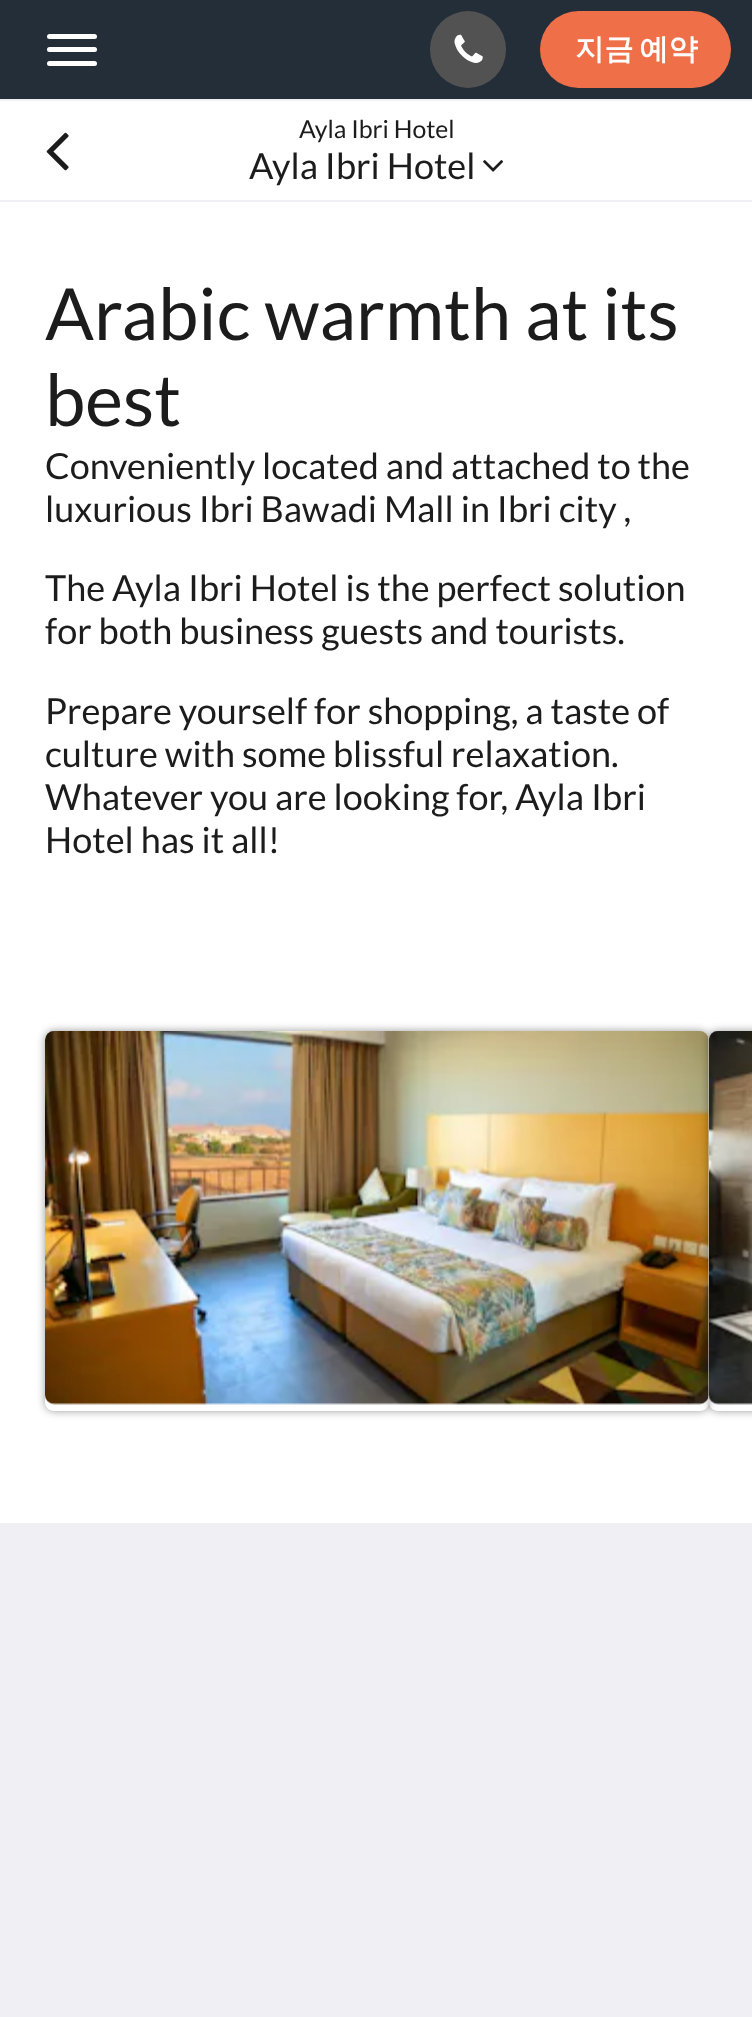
async function draw(canvas) {
  canvas.width = 752
  canvas.height = 2017
  const ctx = canvas.getContext('2d')
  ctx.miterLimit = 4
  ctx.fontKerning = 'normal'
  async function loadImage(src) {
    const img = new Image()
    img.src = src
    await img.decode()
    return img
  }

  ctx.fillStyle = '#efeff4'
  ctx.fillRect(0, 0, 752, 2017)
  ctx.fillStyle = '#232e39'
  ctx.fillRect(0, 0, 752, 99)
  ctx.fillStyle = '#fff'
  ctx.beginPath()
  ctx.roundRect(47, 34, 50, 5, 2.5)
  ctx.fill()
  ctx.beginPath()
  ctx.roundRect(47, 47, 50, 5, 2.5)
  ctx.fill()
  ctx.beginPath()
  ctx.roundRect(47, 61, 50, 5, 2.5)
  ctx.fill()
  ctx.fillStyle = '#525252'
  ctx.beginPath()
  ctx.roundRect(430, 11, 76, 77, 38)
  ctx.fill()
  ctx.drawImage(await loadImage('image0.png'), 454, 34, 29, 29)
  ctx.fillStyle = '#ee6f48'
  ctx.beginPath()
  ctx.roundRect(540, 11, 191, 77, 38.5)
  ctx.fill()
  ctx.wordSpacing = '-3px'
  ctx.font = 'bold 29.25px WenQuanYi Zen Hei'
  ctx.fillStyle = '#fff'
  ctx.fillText('지금 예약', 575, 59)
  ctx.fillRect(0, 101, 752, 1422)
  ctx.fillStyle = '#efeff4'
  ctx.fillRect(0, 200, 752, 2)
  ctx.drawImage(await loadImage('image1.png'), 46, 132, 23, 39)
  ctx.wordSpacing = '0px'
  ctx.font = '24.75px Lato'
  ctx.fillStyle = '#1c1c1c'
  ctx.fillText('Ayla Ibri Hotel', 299, 138)
  ctx.font = '36px Lato'
  ctx.fillText('Ayla Ibri Hotel', 249, 179)
  ctx.drawImage(await loadImage('image2.png'), 483, 160, 21, 12)
  ctx.font = '72px Lato'
  ctx.fillText('Arabic warmth at its', 45, 340)
  ctx.fillText('best', 45, 426)
  ctx.font = '36px Lato'
  ctx.fillText('Conveniently located and attached to the', 45, 479)
  ctx.fillText('luxurious Ibri Bawadi Mall in Ibri city ,', 45, 522)
  ctx.fillText('The Ayla Ibri Hotel is the perfect solution', 45, 601)
  ctx.fillText('for both business guests and tourists.', 45, 644)
  ctx.fillText('Prepare yourself for shopping, a taste of', 45, 724)
  ctx.fillText('culture with some blissful relaxation.', 45, 767)
  ctx.fillText('Whatever you are looking for, Ayla Ibri', 45, 810)
  ctx.fillText('Hotel has it all!', 45, 853)
  ctx.save()
  ctx.beginPath()
  ctx.moveTo(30, 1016)
  ctx.lineTo(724, 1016)
  ctx.lineTo(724, 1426)
  ctx.lineTo(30, 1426)
  ctx.closePath()
  ctx.moveTo(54, 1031)
  ctx.lineTo(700, 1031)
  ctx.bezierCurveTo(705, 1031, 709, 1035, 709, 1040)
  ctx.lineTo(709, 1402)
  ctx.bezierCurveTo(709, 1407, 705, 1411, 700, 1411)
  ctx.lineTo(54, 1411)
  ctx.bezierCurveTo(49, 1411, 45, 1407, 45, 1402)
  ctx.lineTo(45, 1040)
  ctx.bezierCurveTo(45, 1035, 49, 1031, 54, 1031)
  ctx.closePath()
  ctx.clip('evenodd')
  ctx.fillStyle = '#00000066'
  ctx.filter = 'blur(4.5px)'
  ctx.beginPath()
  ctx.roundRect(45, 1031, 664, 380, 9)
  ctx.fill()
  ctx.filter = 'none'
  ctx.restore()
  ctx.drawImage(await loadImage('image3.png'), 45, 1031, 664, 374)
  ctx.save()
  ctx.beginPath()
  ctx.moveTo(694, 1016)
  ctx.lineTo(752, 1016)
  ctx.lineTo(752, 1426)
  ctx.lineTo(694, 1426)
  ctx.closePath()
  ctx.moveTo(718, 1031)
  ctx.lineTo(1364, 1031)
  ctx.bezierCurveTo(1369, 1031, 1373, 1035, 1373, 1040)
  ctx.lineTo(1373, 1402)
  ctx.bezierCurveTo(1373, 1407, 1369, 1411, 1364, 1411)
  ctx.lineTo(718, 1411)
  ctx.bezierCurveTo(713, 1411, 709, 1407, 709, 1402)
  ctx.lineTo(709, 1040)
  ctx.bezierCurveTo(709, 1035, 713, 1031, 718, 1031)
  ctx.closePath()
  ctx.clip('evenodd')
  ctx.fillStyle = '#00000066'
  ctx.filter = 'blur(4.5px)'
  ctx.beginPath()
  ctx.roundRect(709, 1031, 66, 380, 9)
  ctx.fill()
  ctx.filter = 'none'
  ctx.restore()
  ctx.drawImage(await loadImage('image4.png'), 709, 1031, 43, 374)
}

draw(document.querySelector('canvas'))
